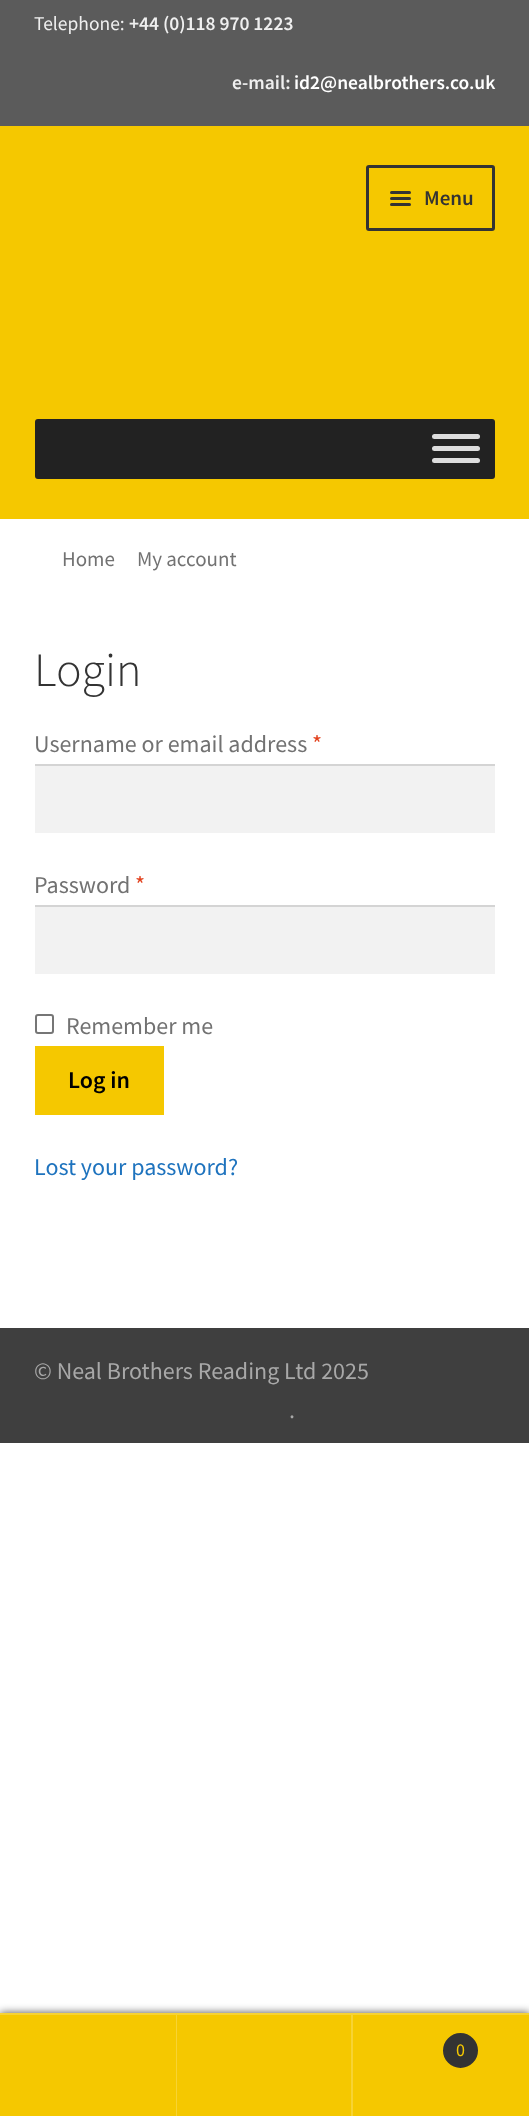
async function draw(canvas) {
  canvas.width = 529
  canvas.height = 2116
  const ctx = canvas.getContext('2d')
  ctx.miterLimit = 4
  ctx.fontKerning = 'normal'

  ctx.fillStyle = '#fff'
  ctx.fillRect(0, 0, 529, 2116)
  ctx.fillStyle = '#5b5b5b'
  ctx.fillRect(0, 0, 529, 126)
  ctx.font = '19.5px Source Sans Pro'
  ctx.fillStyle = '#efefef'
  ctx.fillText('Telephone:', 34, 30)
  ctx.font = '600 19.5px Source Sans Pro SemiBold'
  ctx.fillText('+44 (0)118 970 1223', 129, 30)
  ctx.fillText('e-mail:', 232, 89)
  ctx.fillStyle = '#fff'
  ctx.fillText('id2@nealbrothers.co.uk', 294, 89)
  ctx.fillStyle = '#f5c800'
  ctx.fillRect(0, 126, 529, 393)
  ctx.beginPath()
  ctx.roundRect(367.5, 166.5, 126, 63, 1.5)
  ctx.strokeStyle = '#333'
  ctx.lineWidth = 3
  ctx.stroke()
  ctx.fillStyle = '#333'
  ctx.beginPath()
  ctx.roundRect(390, 191, 21, 3, 1.5)
  ctx.fill()
  ctx.beginPath()
  ctx.roundRect(390, 197, 21, 3, 1.5)
  ctx.fill()
  ctx.font = '600 21px Source Sans Pro SemiBold'
  ctx.fillText('Menu', 424, 205)
  ctx.beginPath()
  ctx.roundRect(390, 203, 21, 3, 1.5)
  ctx.fill()
  ctx.fillStyle = '#222'
  ctx.beginPath()
  ctx.roundRect(35, 419, 460, 60, 3)
  ctx.fill()
  ctx.fillStyle = '#ddd'
  ctx.beginPath()
  ctx.roundRect(432, 434, 48, 5, 2.5)
  ctx.fill()
  ctx.beginPath()
  ctx.roundRect(432, 446, 48, 5, 2.5)
  ctx.fill()
  ctx.beginPath()
  ctx.roundRect(432, 458, 48, 5, 2.5)
  ctx.fill()
  ctx.font = '21px Source Sans Pro'
  ctx.fillStyle = '#727272'
  ctx.fillText('Home', 62, 566)
  ctx.fillText('My account', 137, 566)
  ctx.font = '300 48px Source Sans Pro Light'
  ctx.fillStyle = '#333'
  ctx.fillText('Login', 34, 686)
  ctx.font = '24px Source Sans Pro'
  ctx.fillStyle = '#727272'
  ctx.fillText('Username or email address', 34, 752)
  ctx.fillStyle = '#e2401c'
  ctx.fillText('*', 312, 752)
  ctx.fillStyle = '#f2f2f2'
  ctx.fillRect(35, 766, 460, 67)
  ctx.fillStyle = '#d4d4d4'
  ctx.fillRect(35, 764, 460, 2)
  ctx.fillStyle = '#727272'
  ctx.fillText('Password', 34, 893)
  ctx.fillStyle = '#e2401c'
  ctx.fillText('*', 135, 893)
  ctx.fillStyle = '#f2f2f2'
  ctx.fillRect(35, 907, 460, 67)
  ctx.fillStyle = '#d4d4d4'
  ctx.fillRect(35, 905, 460, 2)
  ctx.beginPath()
  ctx.roundRect(36, 1015, 17, 18, 2)
  ctx.strokeStyle = '#767676'
  ctx.lineWidth = 2
  ctx.stroke()
  ctx.fillStyle = '#727272'
  ctx.fillText('Remember me', 66, 1034)
  ctx.fillStyle = '#f5c800'
  ctx.fillRect(35, 1046, 129, 69)
  ctx.font = '600 24px Source Sans Pro SemiBold'
  ctx.fillStyle = '#000'
  ctx.fillText('Log in', 68, 1088)
  ctx.font = '24px Source Sans Pro'
  ctx.fillStyle = '#1e73be'
  ctx.fillText('Lost your password?', 34, 1175)
  ctx.fillStyle = '#3f3f3f'
  ctx.fillRect(0, 1328, 529, 115)
  ctx.fillStyle = '#a8a8a8'
  ctx.fillText('© Neal Brothers Reading Ltd 2025', 34, 1379)
  ctx.fillText('.', 289, 1418)
  ctx.fillStyle = '#000000b3'
  ctx.filter = 'blur(4.5px)'
  ctx.beginPath()
  ctx.rect(0, 2013, 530, 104)
  ctx.fill()
  ctx.filter = 'none'
  ctx.fillStyle = '#f7d333'
  ctx.fillRect(0, 2013, 529, 2)
  ctx.fillStyle = '#f5c800'
  ctx.fillRect(0, 2015, 351, 101)
  ctx.fillStyle = '#ffffff33'
  ctx.fillRect(176, 2015, 1, 101)
  ctx.fillStyle = '#f7d333'
  ctx.fillRect(351, 2015, 2, 101)
  ctx.fillStyle = '#f5c800'
  ctx.fillRect(353, 2015, 176, 101)
  ctx.fillStyle = '#333'
  ctx.beginPath()
  ctx.arc(460.5, 2050.5, 18.5, 0, 2 * Math.PI)
  ctx.fill()
  ctx.strokeStyle = '#f5c800'
  ctx.stroke()
  ctx.font = '18px Source Sans Pro'
  ctx.fillStyle = '#f5c800'
  ctx.fillText('0', 456, 2056)
}

draw(document.querySelector('canvas'))
